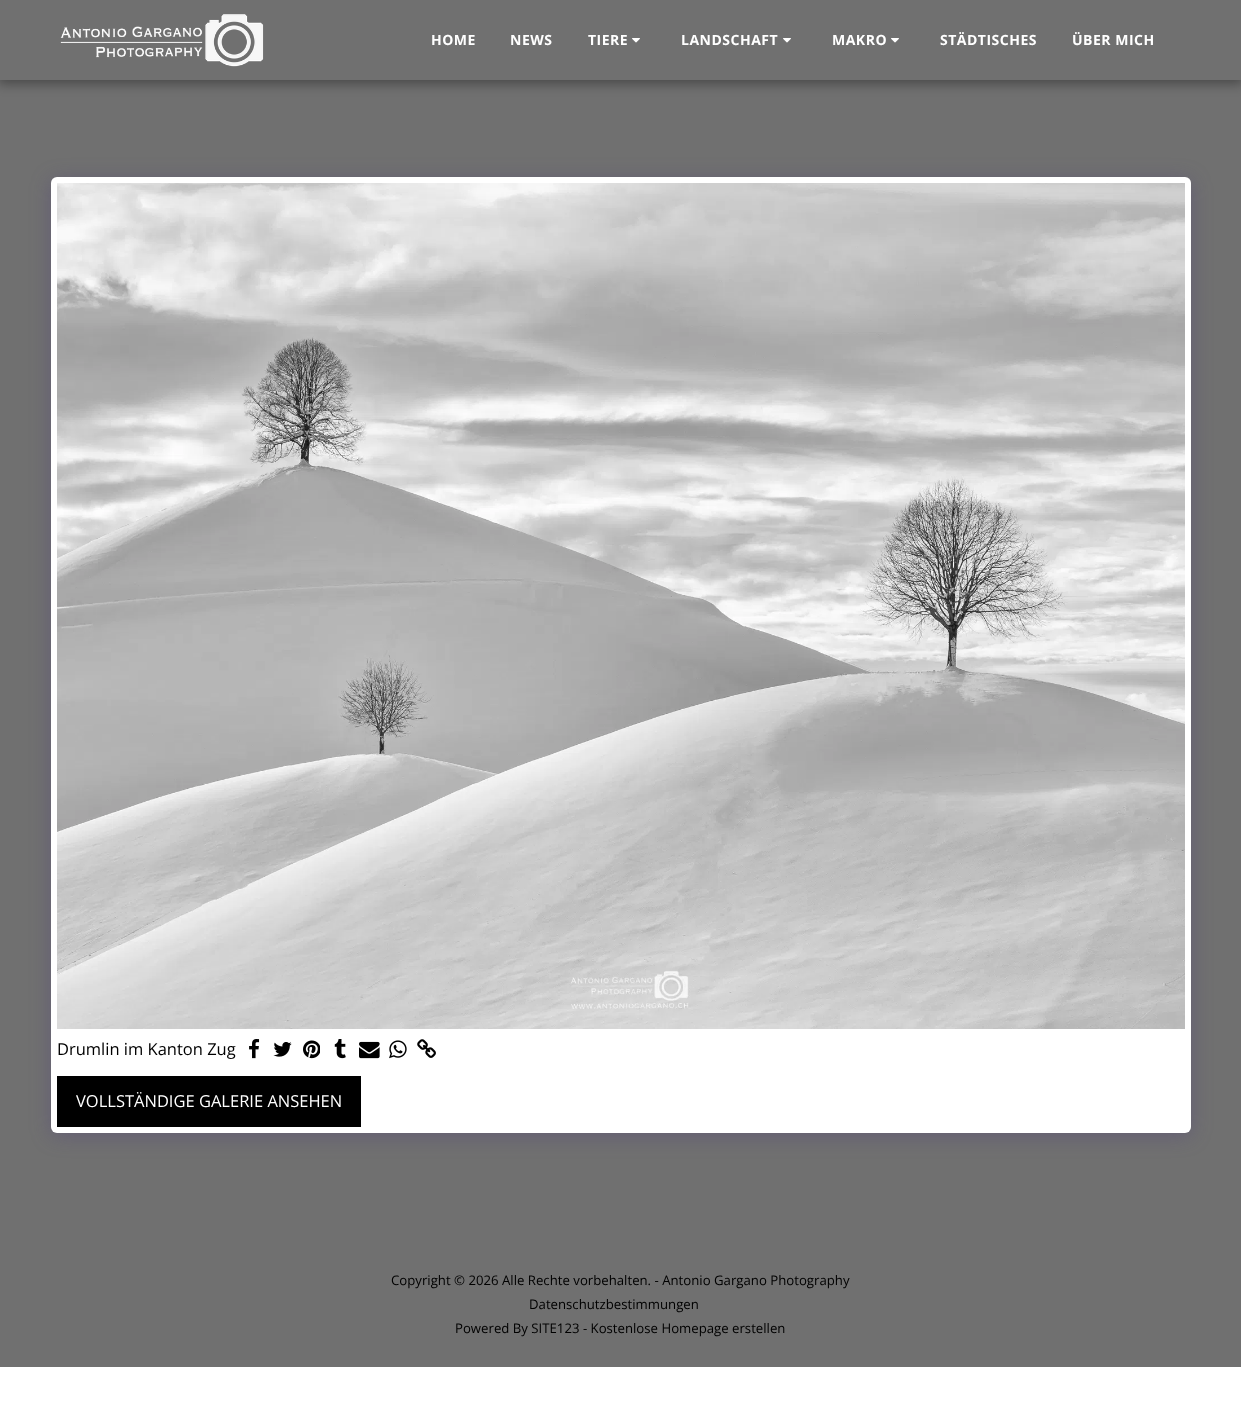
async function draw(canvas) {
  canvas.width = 1241
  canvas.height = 1425
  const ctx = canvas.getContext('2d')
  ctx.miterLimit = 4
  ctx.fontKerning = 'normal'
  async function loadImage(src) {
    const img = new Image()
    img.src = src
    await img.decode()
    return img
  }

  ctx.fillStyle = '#fff'
  ctx.fillRect(0, 0, 1241, 1425)
  ctx.fillStyle = '#707070'
  ctx.fillRect(0, 80, 1241, 1287)
  ctx.fillStyle = '#00000059'
  ctx.filter = 'blur(6px)'
  ctx.beginPath()
  ctx.rect(-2, 0, 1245, 84)
  ctx.fill()
  ctx.filter = 'none'
  ctx.fillStyle = '#707070'
  ctx.fillRect(0, 0, 1241, 80)
  ctx.drawImage(await loadImage('image0.png'), 60, 14, 204, 53)
  ctx.letterSpacing = '0.5px'
  ctx.font = 'bold 14px Open Sans'
  ctx.fillStyle = '#fff'
  ctx.fillText('HOME', 431, 45)
  ctx.fillText('NEWS', 510, 45)
  ctx.fillText('TIERE', 588, 45)
  ctx.drawImage(await loadImage('image1.png'), 632, 38, 8, 5)
  ctx.fillText('LANDSCHAFT', 681, 45)
  ctx.drawImage(await loadImage('image1.png'), 783, 38, 8, 5)
  ctx.fillText('MAKRO', 832, 45)
  ctx.drawImage(await loadImage('image1.png'), 891, 38, 8, 5)
  ctx.fillText('STÄDTISCHES', 940, 45)
  ctx.fillText('ÜBER MICH', 1072, 45)
  ctx.fillStyle = '#4d3f7a66'
  ctx.filter = 'blur(10px)'
  ctx.beginPath()
  ctx.roundRect(51, 180, 1140, 956, 6)
  ctx.fill()
  ctx.filter = 'none'
  ctx.fillStyle = '#fff'
  ctx.beginPath()
  ctx.roundRect(51, 177, 1140, 956, 6)
  ctx.fill()
  ctx.drawImage(await loadImage('image2.png'), 57, 183, 1128, 846)
  ctx.letterSpacing = '0px'
  ctx.font = '16.5px Open Sans'
  ctx.fillStyle = '#000'
  ctx.fillText('Drumlin im Kanton Zug', 57, 1055)
  ctx.drawImage(await loadImage('image3.png'), 249, 1039, 11, 20)
  ctx.drawImage(await loadImage('image4.png'), 273, 1042, 19, 15)
  ctx.drawImage(await loadImage('image5.png'), 303, 1040, 17, 19)
  ctx.drawImage(await loadImage('image6.png'), 334, 1039, 12, 20)
  ctx.drawImage(await loadImage('image7.png'), 359, 1041, 21, 18)
  ctx.drawImage(await loadImage('image8.png'), 389, 1040, 18, 19)
  ctx.drawImage(await loadImage('image9.png'), 417, 1039, 19, 19)
  ctx.fillRect(57, 1076, 304, 51)
  ctx.fillStyle = '#fff'
  ctx.fillText('VOLLSTÄNDIGE GALERIE ANSEHEN', 76, 1107)
  ctx.font = '13.2px Open Sans'
  ctx.fillStyle = '#000'
  ctx.fillText('Copyright © 2026 Alle Rechte vorbehalten. - Antonio Gargano Photography', 391, 1285)
  ctx.fillText('Datenschutzbestimmungen', 529, 1309)
  ctx.fillText('Powered By SITE123 - Kostenlose Homepage erstellen', 455, 1333)
}

draw(document.querySelector('canvas'))
